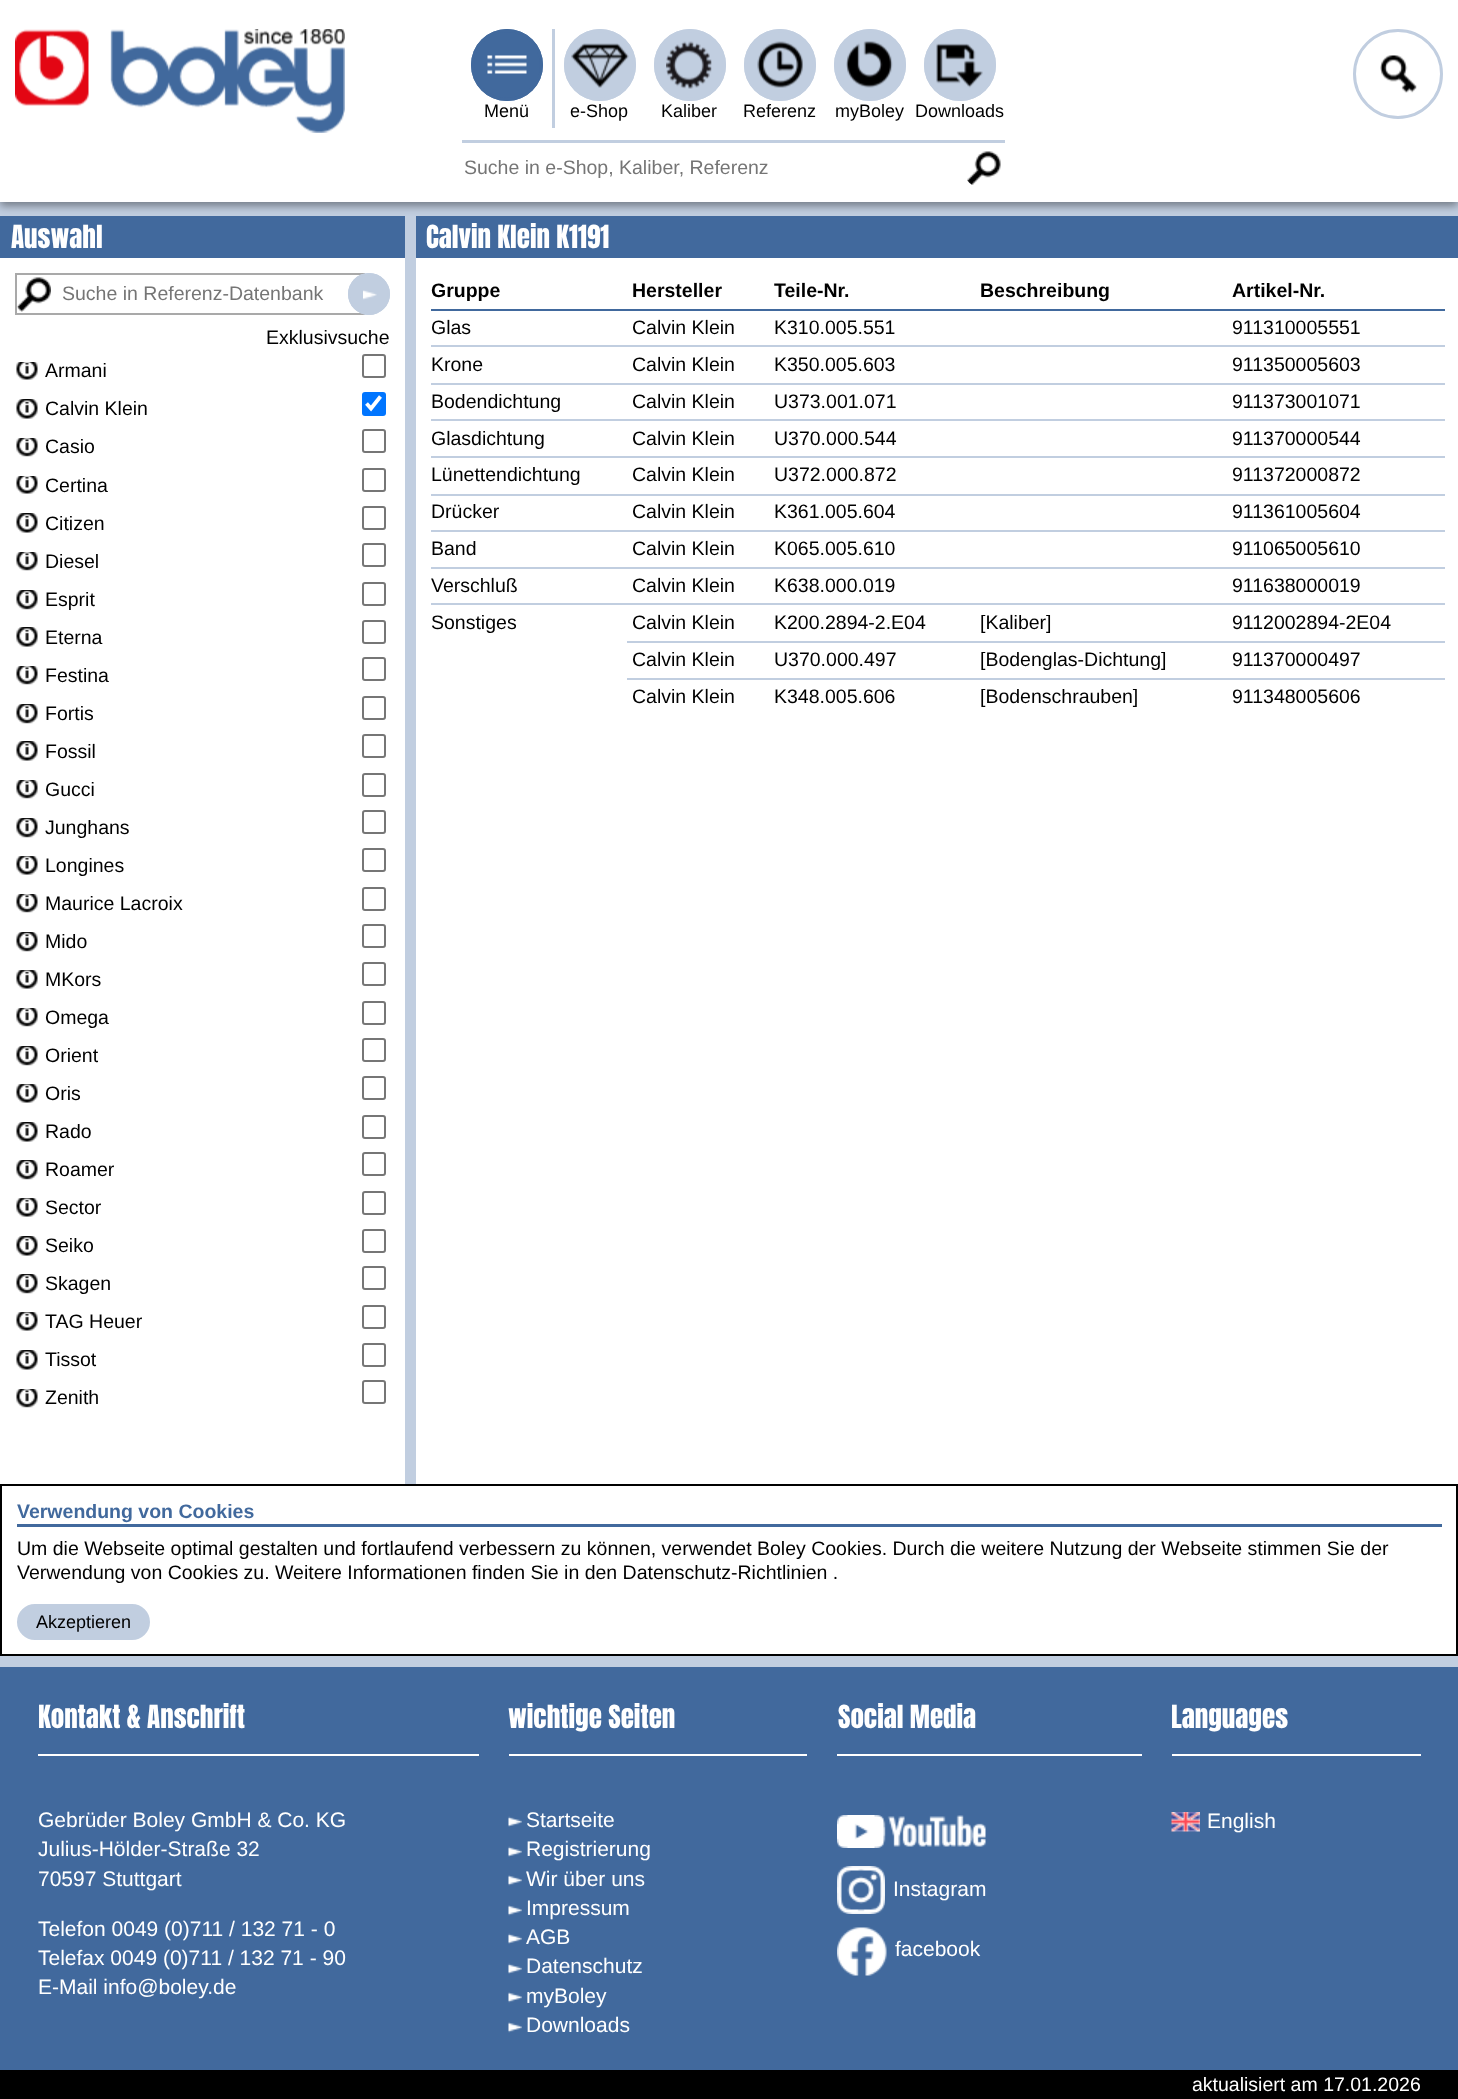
async function draw(canvas) {
  canvas.width = 1458
  canvas.height = 2099
  const ctx = canvas.getContext('2d')
  ctx.miterLimit = 4
  ctx.fontKerning = 'normal'
  async function loadImage(src) {
    const img = new Image()
    img.src = src
    await img.decode()
    return img
  }

  ctx.fillStyle = '#c1cee0'
  ctx.fillRect(0, 0, 1458, 2099)
  ctx.fillStyle = '#41699d'
  ctx.fillRect(0, 216, 405, 42)
  ctx.fillRect(416, 216, 1042, 42)
  ctx.fillStyle = '#00000066'
  ctx.filter = 'blur(4.5px)'
  ctx.beginPath()
  ctx.rect(0, 5, 1458, 201)
  ctx.fill()
  ctx.filter = 'none'
  ctx.fillStyle = '#fff'
  ctx.fillRect(0, 0, 1458, 202)
  ctx.drawImage(await loadImage('image0.png'), 15, 29, 330, 104)
  ctx.fillStyle = '#41699d'
  ctx.beginPath()
  ctx.arc(507, 65, 36, 0, 2 * Math.PI)
  ctx.fill()
  ctx.drawImage(await loadImage('image1.png'), 487, 55, 40, 19)
  ctx.beginPath()
  ctx.arc(507, 65, 34.5, 0, 2 * Math.PI)
  ctx.strokeStyle = '#41699d'
  ctx.lineWidth = 3
  ctx.stroke()
  ctx.font = '18px Liberation Sans'
  ctx.fillStyle = '#000'
  ctx.fillText('Menü', 484, 117)
  ctx.fillStyle = '#c1cee0'
  ctx.fillRect(552, 29, 3, 99)
  ctx.beginPath()
  ctx.arc(600, 65, 36, 0, 2 * Math.PI)
  ctx.fill()
  ctx.drawImage(await loadImage('image2.png'), 571, 43, 58, 45)
  ctx.beginPath()
  ctx.arc(600, 65, 34.5, 0, 2 * Math.PI)
  ctx.strokeStyle = '#c1cee0'
  ctx.stroke()
  ctx.fillStyle = '#000'
  ctx.fillText('e-Shop', 570, 117)
  ctx.fillStyle = '#c1cee0'
  ctx.beginPath()
  ctx.arc(690, 65, 36, 0, 2 * Math.PI)
  ctx.fill()
  ctx.drawImage(await loadImage('image3.png'), 666, 41, 46, 48)
  ctx.beginPath()
  ctx.arc(690, 65, 34.5, 0, 2 * Math.PI)
  ctx.stroke()
  ctx.fillStyle = '#000'
  ctx.fillText('Kaliber', 661, 117)
  ctx.fillStyle = '#c1cee0'
  ctx.beginPath()
  ctx.arc(780, 65, 36, 0, 2 * Math.PI)
  ctx.fill()
  ctx.drawImage(await loadImage('image4.png'), 757, 41, 46, 47)
  ctx.beginPath()
  ctx.arc(780, 65, 34.5, 0, 2 * Math.PI)
  ctx.stroke()
  ctx.fillStyle = '#000'
  ctx.fillText('Referenz', 743, 117)
  ctx.fillStyle = '#c1cee0'
  ctx.beginPath()
  ctx.arc(870, 65, 36, 0, 2 * Math.PI)
  ctx.fill()
  ctx.drawImage(await loadImage('image5.png'), 846, 41, 47, 47)
  ctx.beginPath()
  ctx.arc(870, 65, 34.5, 0, 2 * Math.PI)
  ctx.stroke()
  ctx.fillStyle = '#000'
  ctx.fillText('myBoley', 835, 117)
  ctx.fillStyle = '#c1cee0'
  ctx.beginPath()
  ctx.arc(960, 65, 36, 0, 2 * Math.PI)
  ctx.fill()
  ctx.drawImage(await loadImage('image6.png'), 936, 43, 47, 45)
  ctx.beginPath()
  ctx.arc(960, 65, 34.5, 0, 2 * Math.PI)
  ctx.stroke()
  ctx.fillStyle = '#000'
  ctx.fillText('Downloads', 915, 117)
  ctx.drawImage(await loadImage('image7.png'), 1380, 55, 37, 38)
  ctx.beginPath()
  ctx.arc(1398, 74, 43.5, 0, 2 * Math.PI)
  ctx.stroke()
  ctx.fillStyle = '#c1cee0'
  ctx.fillRect(462, 140, 543, 3)
  ctx.font = '19.5px Liberation Sans'
  ctx.fillStyle = '#757575'
  ctx.fillText('Suche in e-Shop, Kaliber, Referenz', 464, 174)
  ctx.drawImage(await loadImage('image8.png'), 967, 151, 34, 34)
  ctx.fillStyle = '#fff'
  ctx.fillRect(0, 258, 405, 1226)
  ctx.font = '27px Anton'
  ctx.fillText('Auswahl', 11, 248)
  ctx.drawImage(await loadImage('image9.png'), 17, 277, 34, 35)
  ctx.strokeStyle = '#a9a9a9'
  ctx.lineWidth = 2
  ctx.strokeRect(16, 274, 348, 40)
  ctx.font = '19.5px Liberation Sans'
  ctx.fillStyle = '#757575'
  ctx.fillText('Suche in Referenz-Datenbank', 62, 300)
  ctx.fillStyle = '#c1cee0'
  ctx.beginPath()
  ctx.arc(369, 294, 21, 0, 2 * Math.PI)
  ctx.fill()
  ctx.drawImage(await loadImage('image10.png'), 363, 290, 14, 10)
  ctx.beginPath()
  ctx.arc(369, 294, 20, 0, 2 * Math.PI)
  ctx.strokeStyle = '#c1cee0'
  ctx.stroke()
  ctx.fillStyle = '#000'
  ctx.fillText('Exklusivsuche', 266, 344)
  ctx.drawImage(await loadImage('image11.png'), 16, 362, 22, 18)
  ctx.fillText('Armani', 45, 377)
  ctx.beginPath()
  ctx.roundRect(363, 355, 22, 22, 2)
  ctx.strokeStyle = '#767676'
  ctx.stroke()
  ctx.drawImage(await loadImage('image12.png'), 16, 399, 22, 20)
  ctx.fillText('Calvin Klein', 45, 415)
  ctx.fillStyle = '#0075ff'
  ctx.beginPath()
  ctx.roundRect(362, 392, 24, 24, 3)
  ctx.fill()
  ctx.beginPath()
  ctx.moveTo(366.5, 403.5)
  ctx.lineTo(371, 408.5)
  ctx.lineTo(380.5, 396.5)
  ctx.strokeStyle = '#fff'
  ctx.lineWidth = 3.8
  ctx.stroke()
  ctx.drawImage(await loadImage('image13.png'), 16, 438, 22, 19)
  ctx.fillStyle = '#000'
  ctx.fillText('Casio', 45, 453)
  ctx.beginPath()
  ctx.roundRect(363, 430, 22, 22, 2)
  ctx.strokeStyle = '#767676'
  ctx.lineWidth = 2
  ctx.stroke()
  ctx.drawImage(await loadImage('image11.png'), 16, 476, 22, 18)
  ctx.fillText('Certina', 45, 492)
  ctx.beginPath()
  ctx.roundRect(363, 469, 22, 22, 2)
  ctx.stroke()
  ctx.drawImage(await loadImage('image12.png'), 16, 513, 22, 20)
  ctx.fillText('Citizen', 45, 530)
  ctx.beginPath()
  ctx.roundRect(363, 507, 22, 22, 2)
  ctx.stroke()
  ctx.drawImage(await loadImage('image13.png'), 16, 552, 22, 19)
  ctx.fillText('Diesel', 45, 568)
  ctx.beginPath()
  ctx.roundRect(363, 544, 22, 22, 2)
  ctx.stroke()
  ctx.drawImage(await loadImage('image14.png'), 16, 590, 22, 20)
  ctx.fillText('Esprit', 45, 606)
  ctx.beginPath()
  ctx.roundRect(363, 583, 22, 22, 2)
  ctx.stroke()
  ctx.drawImage(await loadImage('image12.png'), 16, 627, 22, 20)
  ctx.fillText('Eterna', 45, 644)
  ctx.beginPath()
  ctx.roundRect(363, 621, 22, 22, 2)
  ctx.stroke()
  ctx.drawImage(await loadImage('image13.png'), 16, 666, 22, 19)
  ctx.fillText('Festina', 45, 682)
  ctx.beginPath()
  ctx.roundRect(363, 658, 22, 22, 2)
  ctx.stroke()
  ctx.drawImage(await loadImage('image14.png'), 16, 704, 22, 20)
  ctx.fillText('Fortis', 45, 720)
  ctx.beginPath()
  ctx.roundRect(363, 697, 22, 22, 2)
  ctx.stroke()
  ctx.drawImage(await loadImage('image12.png'), 16, 741, 22, 20)
  ctx.fillText('Fossil', 45, 758)
  ctx.beginPath()
  ctx.roundRect(363, 735, 22, 22, 2)
  ctx.stroke()
  ctx.drawImage(await loadImage('image13.png'), 16, 780, 22, 19)
  ctx.fillText('Gucci', 45, 796)
  ctx.beginPath()
  ctx.roundRect(363, 774, 22, 22, 2)
  ctx.stroke()
  ctx.drawImage(await loadImage('image14.png'), 16, 818, 22, 20)
  ctx.fillText('Junghans', 45, 834)
  ctx.beginPath()
  ctx.roundRect(363, 811, 22, 22, 2)
  ctx.stroke()
  ctx.drawImage(await loadImage('image15.png'), 16, 856, 22, 19)
  ctx.fillText('Longines', 45, 872)
  ctx.beginPath()
  ctx.roundRect(363, 849, 22, 22, 2)
  ctx.stroke()
  ctx.drawImage(await loadImage('image13.png'), 16, 894, 22, 19)
  ctx.fillText('Maurice Lacroix', 45, 910)
  ctx.beginPath()
  ctx.roundRect(363, 888, 22, 22, 2)
  ctx.stroke()
  ctx.drawImage(await loadImage('image14.png'), 16, 932, 22, 20)
  ctx.fillText('Mido', 45, 948)
  ctx.beginPath()
  ctx.roundRect(363, 925, 22, 22, 2)
  ctx.stroke()
  ctx.drawImage(await loadImage('image15.png'), 16, 970, 22, 19)
  ctx.fillText('MKors', 45, 986)
  ctx.beginPath()
  ctx.roundRect(363, 963, 22, 22, 2)
  ctx.stroke()
  ctx.drawImage(await loadImage('image13.png'), 16, 1008, 22, 19)
  ctx.fillText('Omega', 45, 1024)
  ctx.beginPath()
  ctx.roundRect(363, 1002, 22, 22, 2)
  ctx.stroke()
  ctx.drawImage(await loadImage('image14.png'), 16, 1046, 22, 20)
  ctx.fillText('Orient', 45, 1062)
  ctx.beginPath()
  ctx.roundRect(363, 1039, 22, 22, 2)
  ctx.stroke()
  ctx.drawImage(await loadImage('image15.png'), 16, 1084, 22, 19)
  ctx.fillText('Oris', 45, 1100)
  ctx.beginPath()
  ctx.roundRect(363, 1077, 22, 22, 2)
  ctx.stroke()
  ctx.drawImage(await loadImage('image12.png'), 16, 1122, 22, 20)
  ctx.fillText('Rado', 45, 1138)
  ctx.beginPath()
  ctx.roundRect(363, 1116, 22, 22, 2)
  ctx.stroke()
  ctx.drawImage(await loadImage('image14.png'), 16, 1160, 22, 20)
  ctx.fillText('Roamer', 45, 1176)
  ctx.beginPath()
  ctx.roundRect(363, 1153, 22, 22, 2)
  ctx.stroke()
  ctx.drawImage(await loadImage('image15.png'), 16, 1198, 22, 19)
  ctx.fillText('Sector', 45, 1214)
  ctx.beginPath()
  ctx.roundRect(363, 1192, 22, 22, 2)
  ctx.stroke()
  ctx.drawImage(await loadImage('image12.png'), 16, 1236, 22, 20)
  ctx.fillText('Seiko', 45, 1252)
  ctx.beginPath()
  ctx.roundRect(363, 1230, 22, 22, 2)
  ctx.stroke()
  ctx.drawImage(await loadImage('image14.png'), 16, 1274, 22, 20)
  ctx.fillText('Skagen', 45, 1290)
  ctx.beginPath()
  ctx.roundRect(363, 1267, 22, 22, 2)
  ctx.stroke()
  ctx.drawImage(await loadImage('image15.png'), 16, 1312, 22, 19)
  ctx.fillText('TAG Heuer', 45, 1328)
  ctx.beginPath()
  ctx.roundRect(363, 1306, 22, 22, 2)
  ctx.stroke()
  ctx.drawImage(await loadImage('image12.png'), 16, 1350, 22, 20)
  ctx.fillText('Tissot', 45, 1366)
  ctx.beginPath()
  ctx.roundRect(363, 1344, 22, 22, 2)
  ctx.stroke()
  ctx.drawImage(await loadImage('image13.png'), 16, 1389, 22, 19)
  ctx.fillText('Zenith', 45, 1404)
  ctx.beginPath()
  ctx.roundRect(363, 1381, 22, 22, 2)
  ctx.stroke()
  ctx.fillStyle = '#fff'
  ctx.fillRect(416, 258, 1042, 1226)
  ctx.font = '27px Anton'
  ctx.fillText('Calvin Klein K1191', 426, 248)
  ctx.font = 'bold 19.5px Liberation Sans'
  ctx.fillStyle = '#000'
  ctx.fillText('Gruppe', 431, 297)
  ctx.fillText('Hersteller', 632, 297)
  ctx.fillText('Teile-Nr.', 774, 297)
  ctx.fillText('Beschreibung', 980, 297)
  ctx.fillText('Artikel-Nr.', 1232, 297)
  ctx.font = '19.5px Liberation Sans'
  ctx.fillText('Glas', 431, 334)
  ctx.fillText('Calvin Klein', 632, 334)
  ctx.fillText('K310.005.551', 774, 334)
  ctx.fillStyle = '#41699d'
  ctx.fillRect(431, 309, 1014, 2)
  ctx.fillStyle = '#000'
  ctx.fillText('911310005551', 1232, 334)
  ctx.fillText('Krone', 431, 371)
  ctx.fillText('Calvin Klein', 632, 371)
  ctx.fillText('K350.005.603', 774, 371)
  ctx.fillStyle = '#c1cee0'
  ctx.fillRect(431, 345, 1014, 2)
  ctx.fillStyle = '#000'
  ctx.fillText('911350005603', 1232, 371)
  ctx.fillText('Bodendichtung', 431, 408)
  ctx.fillText('Calvin Klein', 632, 408)
  ctx.fillText('U373.001.071', 774, 408)
  ctx.fillStyle = '#c1cee0'
  ctx.fillRect(431, 383, 1014, 2)
  ctx.fillStyle = '#000'
  ctx.fillText('911373001071', 1232, 408)
  ctx.fillText('Glasdichtung', 431, 445)
  ctx.fillText('Calvin Klein', 632, 445)
  ctx.fillText('U370.000.544', 774, 445)
  ctx.fillStyle = '#c1cee0'
  ctx.fillRect(431, 419, 1014, 2)
  ctx.fillStyle = '#000'
  ctx.fillText('911370000544', 1232, 445)
  ctx.fillText('Lünettendichtung', 431, 481)
  ctx.fillText('Calvin Klein', 632, 481)
  ctx.fillText('U372.000.872', 774, 481)
  ctx.fillStyle = '#c1cee0'
  ctx.fillRect(431, 456, 1014, 2)
  ctx.fillStyle = '#000'
  ctx.fillText('911372000872', 1232, 481)
  ctx.fillText('Drücker', 431, 518)
  ctx.fillText('Calvin Klein', 632, 518)
  ctx.fillText('K361.005.604', 774, 518)
  ctx.fillStyle = '#c1cee0'
  ctx.fillRect(431, 494, 1014, 2)
  ctx.fillStyle = '#000'
  ctx.fillText('911361005604', 1232, 518)
  ctx.fillText('Band', 431, 555)
  ctx.fillText('Calvin Klein', 632, 555)
  ctx.fillText('K065.005.610', 774, 555)
  ctx.fillStyle = '#c1cee0'
  ctx.fillRect(431, 530, 1014, 2)
  ctx.fillStyle = '#000'
  ctx.fillText('911065005610', 1232, 555)
  ctx.fillText('Verschluß', 431, 592)
  ctx.fillText('Calvin Klein', 632, 592)
  ctx.fillText('K638.000.019', 774, 592)
  ctx.fillStyle = '#c1cee0'
  ctx.fillRect(431, 567, 1014, 2)
  ctx.fillStyle = '#000'
  ctx.fillText('911638000019', 1232, 592)
  ctx.fillText('Sonstiges', 431, 629)
  ctx.fillText('Calvin Klein', 632, 629)
  ctx.fillText('K200.2894-2.E04', 774, 629)
  ctx.fillText('[Kaliber]', 980, 629)
  ctx.fillStyle = '#c1cee0'
  ctx.fillRect(431, 603, 1014, 2)
  ctx.fillStyle = '#000'
  ctx.fillText('9112002894-2E04', 1232, 629)
  ctx.fillText('Calvin Klein', 632, 666)
  ctx.fillText('U370.000.497', 774, 666)
  ctx.fillText('[Bodenglas-Dichtung]', 980, 666)
  ctx.fillStyle = '#c1cee0'
  ctx.fillRect(627, 641, 818, 2)
  ctx.fillStyle = '#000'
  ctx.fillText('911370000497', 1232, 666)
  ctx.fillText('Calvin Klein', 632, 703)
  ctx.fillText('K348.005.606', 774, 703)
  ctx.fillText('[Bodenschrauben]', 980, 703)
  ctx.fillStyle = '#c1cee0'
  ctx.fillRect(627, 678, 818, 2)
  ctx.fillStyle = '#000'
  ctx.fillText('911348005606', 1232, 703)
  ctx.fillStyle = '#fff'
  ctx.beginPath()
  ctx.rect(1, 1485, 1456, 170)
  ctx.fill()
  ctx.strokeStyle = '#000'
  ctx.stroke()
  ctx.fillStyle = '#41699d'
  ctx.fillRect(17, 1524, 1425, 3)
  ctx.font = 'bold 19.5px Liberation Sans'
  ctx.fillText('Verwendung von Cookies', 17, 1518)
  ctx.font = '19.5px Liberation Sans'
  ctx.fillStyle = '#000'
  ctx.fillText('Um die Webseite optimal gestalten und fortlaufend verbessern zu können, verwendet Boley Cookies. Durch die weitere Nutzung der Webseite stimmen Sie der', 17, 1555)
  ctx.fillText('Verwendung von Cookies zu. Weitere Informationen finden Sie in den Datenschutz-Richtlinien .', 17, 1579)
  ctx.fillStyle = '#c1cee0'
  ctx.beginPath()
  ctx.roundRect(18, 1605, 131, 34, 17)
  ctx.fill()
  ctx.strokeStyle = '#c1cee0'
  ctx.stroke()
  ctx.font = '18px Liberation Sans'
  ctx.fillStyle = '#000'
  ctx.fillText('Akzeptieren', 36, 1628)
  ctx.fillStyle = '#41699d'
  ctx.fillRect(0, 1667, 1458, 403)
  ctx.fillStyle = '#fff'
  ctx.fillRect(38, 1754, 441, 2)
  ctx.font = '27px Anton'
  ctx.fillText('Kontakt & Anschrift', 38, 1728)
  ctx.font = '21px Liberation Sans'
  ctx.fillText('Gebrüder Boley GmbH & Co. KG', 38, 1827)
  ctx.fillText('Julius-Hölder-Straße 32', 38, 1856)
  ctx.fillText('70597 Stuttgart', 38, 1886)
  ctx.fillText('Telefon 0049 (0)711 / 132 71 - 0', 38, 1936)
  ctx.fillText('Telefax 0049 (0)711 / 132 71 - 90', 38, 1965)
  ctx.fillText('E-Mail info@boley.de', 38, 1994)
  ctx.fillRect(509, 1754, 298, 2)
  ctx.font = '27px Anton'
  ctx.fillText('wichtige Seiten', 508, 1728)
  ctx.drawImage(await loadImage('image16.png'), 508, 1816, 14, 11)
  ctx.font = '21px Liberation Sans'
  ctx.fillText('Startseite', 526, 1827)
  ctx.drawImage(await loadImage('image16.png'), 508, 1846, 14, 11)
  ctx.fillText('Registrierung', 526, 1856)
  ctx.drawImage(await loadImage('image17.png'), 508, 1875, 14, 11)
  ctx.fillText('Wir über uns', 526, 1886)
  ctx.drawImage(await loadImage('image17.png'), 508, 1905, 14, 11)
  ctx.fillText('Impressum', 526, 1915)
  ctx.drawImage(await loadImage('image16.png'), 508, 1933, 14, 11)
  ctx.fillText('AGB', 526, 1944)
  ctx.drawImage(await loadImage('image16.png'), 508, 1963, 14, 11)
  ctx.fillText('Datenschutz', 526, 1973)
  ctx.drawImage(await loadImage('image17.png'), 508, 1992, 14, 11)
  ctx.fillText('myBoley', 526, 2003)
  ctx.drawImage(await loadImage('image17.png'), 508, 2022, 14, 11)
  ctx.fillText('Downloads', 526, 2032)
  ctx.fillRect(837, 1754, 305, 2)
  ctx.font = '27px Anton'
  ctx.fillText('Social Media', 838, 1728)
  ctx.drawImage(await loadImage('image18.png'), 837, 1815, 149, 33)
  ctx.drawImage(await loadImage('image19.png'), 837, 1866, 48, 48)
  ctx.font = '21px Liberation Sans'
  ctx.fillText('Instagram', 893, 1896)
  ctx.drawImage(await loadImage('image20.png'), 837, 1927, 50, 49)
  ctx.fillText('facebook', 895, 1956)
  ctx.fillRect(1172, 1754, 249, 2)
  ctx.font = '27px Anton'
  ctx.fillText('Languages', 1171, 1728)
  ctx.drawImage(await loadImage('image21.png'), 1171, 1812, 29, 20)
  ctx.font = '21px Liberation Sans'
  ctx.fillText('English', 1207, 1828)
  ctx.fillStyle = '#000'
  ctx.fillRect(0, 2070, 1458, 29)
  ctx.font = '19.5px Liberation Sans'
  ctx.fillStyle = '#fff'
  ctx.fillText('aktualisiert am 17.01.2026', 1192, 2091)
}

draw(document.querySelector('canvas'))
